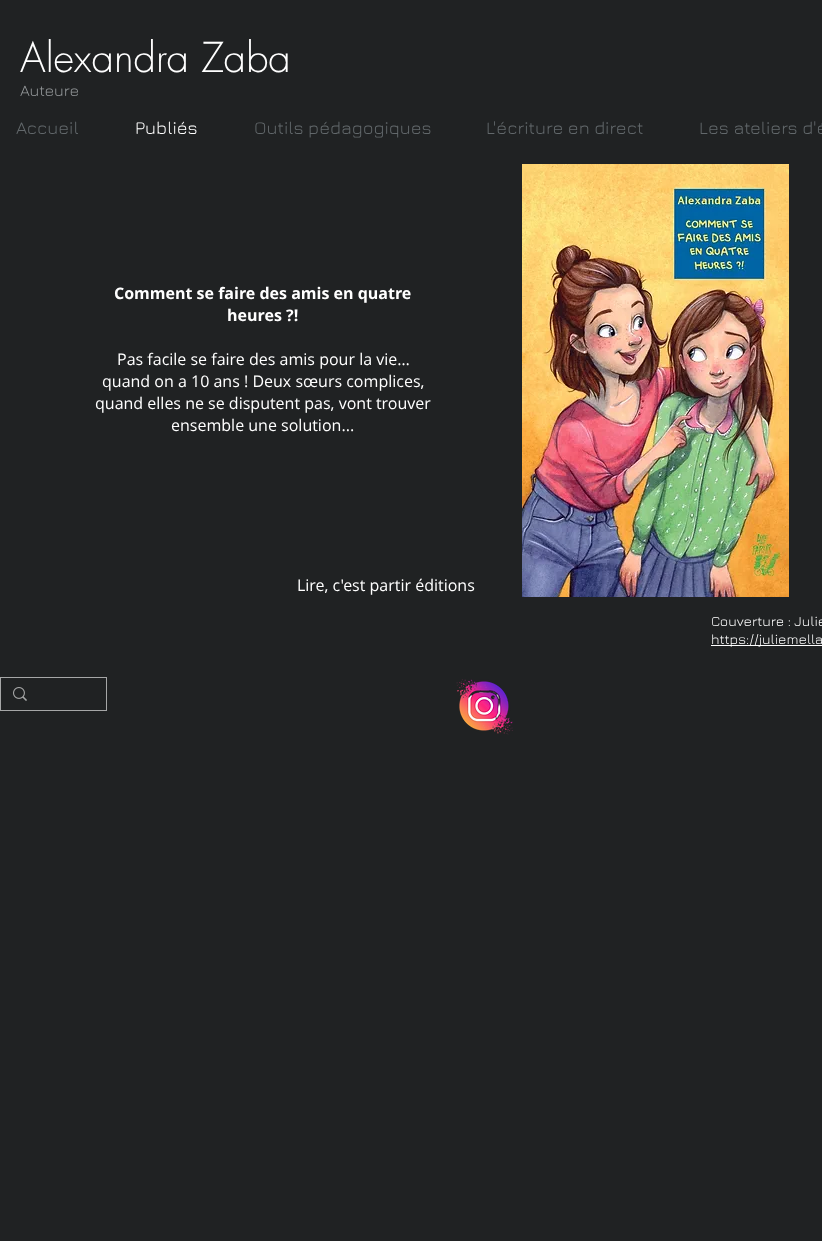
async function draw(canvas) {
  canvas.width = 822
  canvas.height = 1241
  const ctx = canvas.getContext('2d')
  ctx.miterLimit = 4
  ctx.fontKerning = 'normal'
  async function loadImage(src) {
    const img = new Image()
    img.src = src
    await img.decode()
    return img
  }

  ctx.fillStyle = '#202223'
  ctx.fillRect(0, 0, 822, 1241)
  ctx.font = '300 40px futura'
  ctx.fillStyle = '#fff'
  ctx.fillText('Alexandra Zaba', 20, 72)
  ctx.font = '16px Jura'
  ctx.fillStyle = '#969a9c'
  ctx.fillText('Auteure', 20, 96)
  ctx.font = '18px Jura'
  ctx.fillStyle = '#62686b'
  ctx.fillText('Accueil', 16, 134)
  ctx.fillStyle = '#fff'
  ctx.fillText('Publiés', 135, 134)
  ctx.fillStyle = '#62686b'
  ctx.fillText('Outils pédagogiques', 254, 134)
  ctx.fillText('L\'écriture en direct', 486, 134)
  ctx.fillText('Les ateliers d\'é', 699, 134)
  ctx.font = 'bold 16px Open Sans'
  ctx.fillStyle = '#fff'
  ctx.fillText('Comment se faire des amis en quatre', 114, 299)
  ctx.fillText('heures ?!', 227, 321)
  ctx.font = '16px Open Sans'
  ctx.fillText('Pas facile se faire des amis pour la vie…', 117, 365)
  ctx.fillText('quand on a 10 ans ! Deux sœurs complices,', 102, 387)
  ctx.fillText('quand elles ne se disputent pas, vont trouver', 95, 409)
  ctx.fillText('ensemble une solution...', 171, 431)
  ctx.drawImage(await loadImage('image0.png'), 522, 164, 267, 433)
  ctx.fillText('Lire, c\'est partir éditions', 297, 591)
  ctx.font = '14px Jura'
  ctx.fillText('Couverture : Julie', 711, 626)
  ctx.fillRect(711, 645, 111, 1)
  ctx.fillText('https://juliemella', 711, 644)
  ctx.strokeStyle = '#a6a7a7'
  ctx.strokeRect(0.5, 677.5, 106, 33)
  ctx.drawImage(await loadImage('image1.png'), 13, 687, 14, 14)
  ctx.drawImage(await loadImage('image2.png'), 456, 679, 57, 56)
}

draw(document.querySelector('canvas'))
